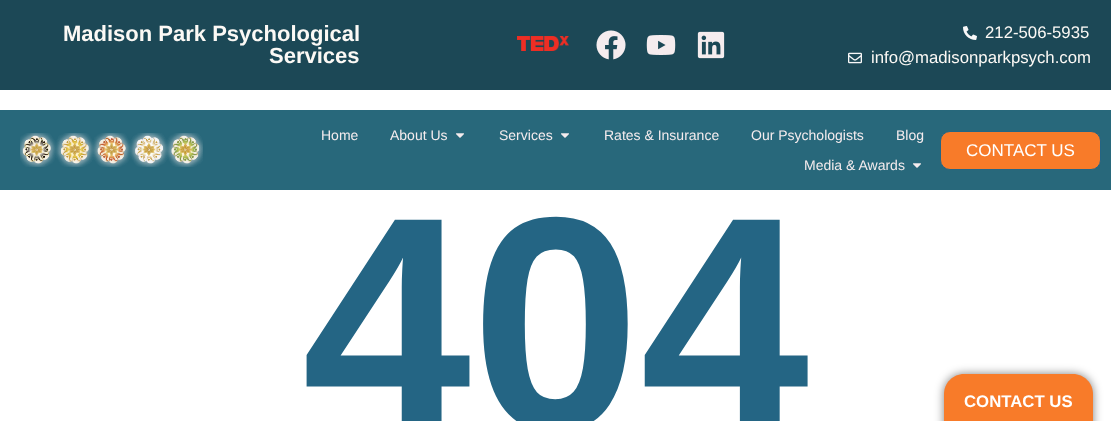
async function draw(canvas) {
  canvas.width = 1111
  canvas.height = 421
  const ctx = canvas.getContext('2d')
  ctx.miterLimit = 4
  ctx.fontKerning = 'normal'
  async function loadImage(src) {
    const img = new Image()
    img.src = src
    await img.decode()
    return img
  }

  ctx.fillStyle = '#fff'
  ctx.fillRect(0, 0, 1111, 421)
  ctx.fillStyle = '#1c4856'
  ctx.fillRect(0, 0, 1111, 90)
  ctx.font = 'bold 22px Liberation Sans'
  ctx.fillStyle = '#fcf9f5'
  ctx.fillText('Madison Park Psychological', 63, 41)
  ctx.fillText('Services', 269, 63)
  ctx.drawImage(await loadImage('image0.png'), 517, 36, 52, 15)
  ctx.drawImage(await loadImage('image1.png'), 596, 30, 30, 30)
  ctx.drawImage(await loadImage('image2.png'), 646, 35, 30, 20)
  ctx.drawImage(await loadImage('image3.png'), 697, 31, 28, 28)
  ctx.drawImage(await loadImage('image4.png'), 963, 26, 14, 14)
  ctx.font = '16.75px Liberation Sans'
  ctx.fillText('212-506-5935', 985, 38)
  ctx.drawImage(await loadImage('image5.png'), 848, 52, 14, 12)
  ctx.fillText('info@madisonparkpsych.com', 871, 63)
  ctx.fillStyle = '#28687b'
  ctx.fillRect(0, 110, 1111, 80)
  ctx.drawImage(await loadImage('image6.png'), 20, 133, 183, 34)
  ctx.font = '14px Liberation Sans'
  ctx.fillStyle = '#f5ecee'
  ctx.fillText('Home', 321, 140)
  ctx.fillText('About Us', 390, 140)
  ctx.drawImage(await loadImage('image7.png'), 456, 133, 8, 5)
  ctx.fillText('Services', 499, 140)
  ctx.drawImage(await loadImage('image7.png'), 561, 133, 8, 5)
  ctx.fillText('Rates & Insurance', 604, 140)
  ctx.fillText('Our Psychologists', 751, 140)
  ctx.fillText('Blog', 896, 140)
  ctx.fillText('Media & Awards', 804, 170)
  ctx.drawImage(await loadImage('image7.png'), 913, 163, 8, 5)
  ctx.fillStyle = '#f87b29'
  ctx.beginPath()
  ctx.roundRect(940.5, 131.5, 160, 38, 9.5)
  ctx.fill()
  ctx.strokeStyle = '#246584'
  ctx.stroke()
  ctx.font = '17px Liberation Sans'
  ctx.fillStyle = '#fff'
  ctx.fillText('CONTACT US', 966, 156)
  ctx.fillStyle = '#00000080'
  ctx.filter = 'blur(5px)'
  ctx.beginPath()
  ctx.roundRect(944, 374, 149, 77, 20)
  ctx.fill()
  ctx.filter = 'none'
  ctx.fillStyle = '#f87b29'
  ctx.beginPath()
  ctx.moveTo(964, 374)
  ctx.lineTo(1073, 374)
  ctx.bezierCurveTo(1084, 374, 1093, 383, 1093, 394)
  ctx.lineTo(1093, 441)
  ctx.lineTo(944, 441)
  ctx.lineTo(944, 394)
  ctx.bezierCurveTo(944, 383, 953, 374, 964, 374)
  ctx.closePath()
  ctx.fill()
  ctx.font = 'bold 16.75px Liberation Sans'
  ctx.fillStyle = '#fff'
  ctx.fillText('CONTACT US', 964, 407)
  ctx.font = 'bold 304px Liberation Sans'
  ctx.fillStyle = '#246584'
  ctx.fillText('404', 302, 429)
}

draw(document.querySelector('canvas'))
